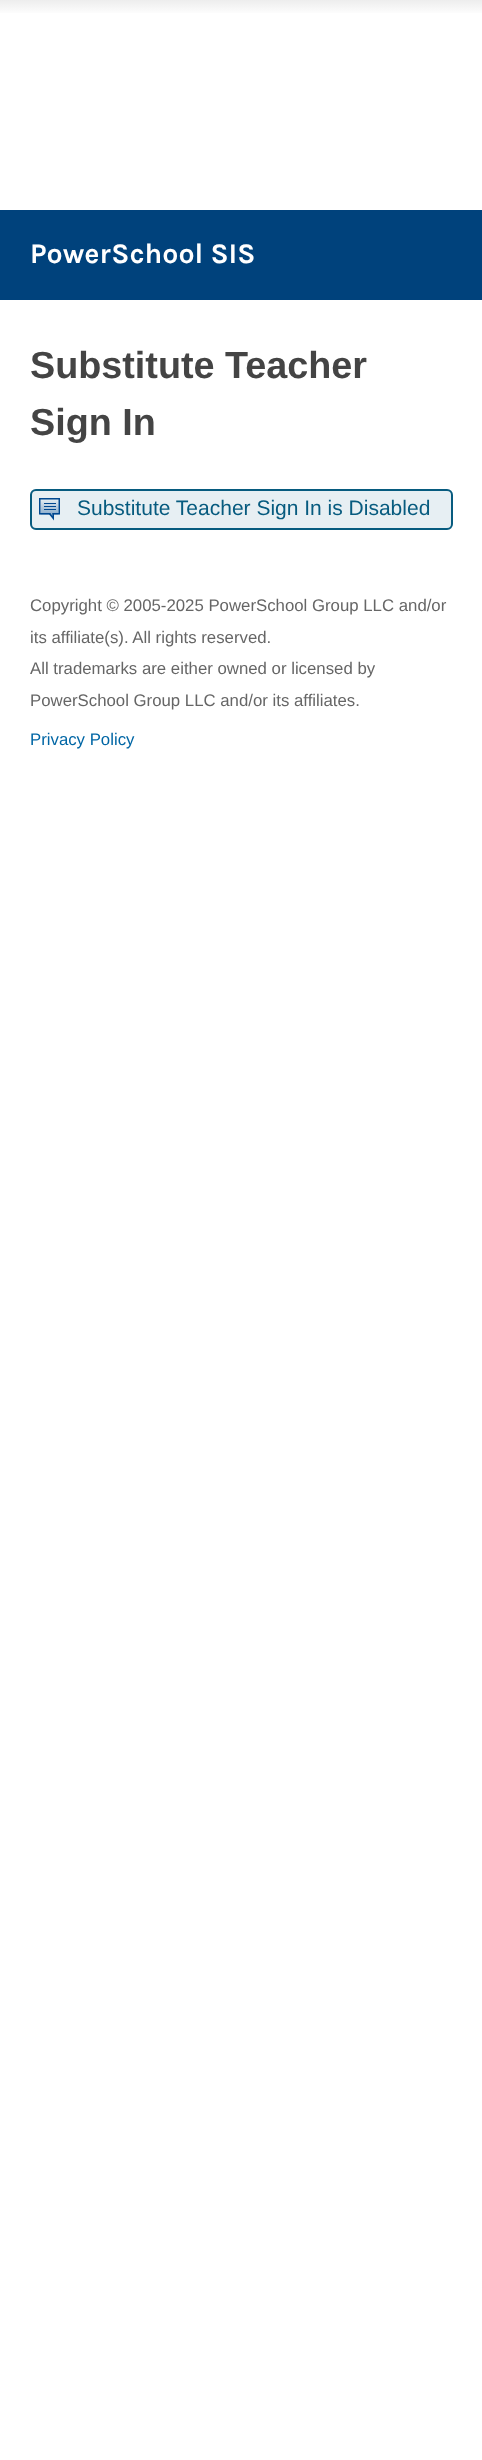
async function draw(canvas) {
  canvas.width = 482
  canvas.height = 2460
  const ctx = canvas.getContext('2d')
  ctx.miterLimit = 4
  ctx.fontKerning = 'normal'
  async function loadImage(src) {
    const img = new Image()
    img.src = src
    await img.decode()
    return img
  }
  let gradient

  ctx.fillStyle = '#fff'
  ctx.fillRect(0, 0, 482, 2460)
  gradient = ctx.createLinearGradient(0, 0, 0, 15)
  gradient.addColorStop(0, '#ededed')
  gradient.addColorStop(1, '#fff')
  ctx.fillStyle = gradient
  ctx.fillRect(0, 0, 482, 13)
  ctx.fillStyle = '#00427c'
  ctx.fillRect(0, 210, 482, 90)
  ctx.font = 'bold 28.5px Karla'
  ctx.fillStyle = '#fff'
  ctx.fillText('PowerSchool SIS', 30, 263)
  ctx.font = 'bold 37.75px Liberation Sans'
  ctx.fillStyle = '#444'
  ctx.fillText('Substitute Teacher', 30, 378)
  ctx.fillText('Sign In', 30, 435)
  ctx.fillStyle = '#e7eff3'
  ctx.beginPath()
  ctx.roundRect(30, 489, 423, 41, 6)
  ctx.fill()
  ctx.drawImage(await loadImage('image0.png'), 39, 498, 21, 23)
  ctx.beginPath()
  ctx.roundRect(31, 490, 421, 39, 5)
  ctx.strokeStyle = '#075b7f'
  ctx.lineWidth = 2
  ctx.stroke()
  ctx.font = '21px Liberation Sans'
  ctx.fillStyle = '#075b7f'
  ctx.fillText('Substitute Teacher Sign In is Disabled', 77, 515)
  ctx.font = '16.8px Liberation Sans'
  ctx.fillStyle = '#666'
  ctx.fillText('Copyright © 2005-2025 PowerSchool Group LLC and/or', 30, 611)
  ctx.fillText('its affiliate(s). All rights reserved.', 30, 643)
  ctx.fillText('All trademarks are either owned or licensed by', 30, 674)
  ctx.fillText('PowerSchool Group LLC and/or its affiliates.', 30, 706)
  ctx.fillStyle = '#0066a5'
  ctx.fillText('Privacy Policy', 30, 745)
}

draw(document.querySelector('canvas'))
